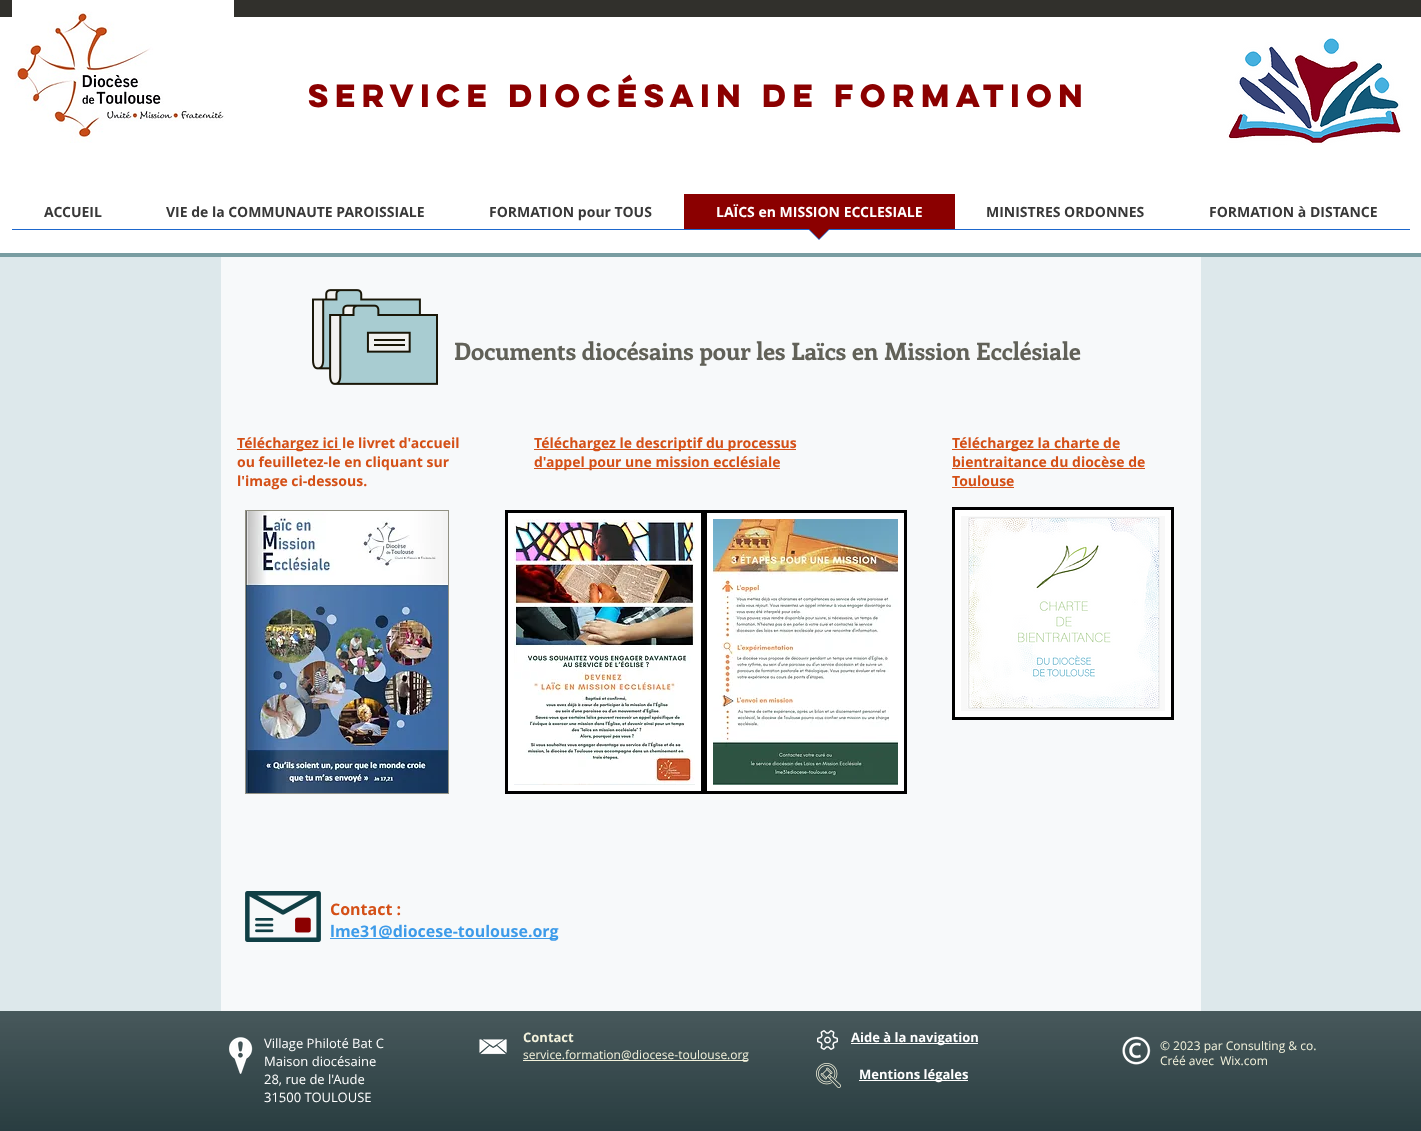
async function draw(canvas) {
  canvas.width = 1421
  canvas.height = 1131
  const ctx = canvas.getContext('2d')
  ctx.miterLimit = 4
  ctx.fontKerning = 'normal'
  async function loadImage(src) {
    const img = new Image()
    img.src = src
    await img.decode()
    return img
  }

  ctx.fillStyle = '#dde8eb'
  ctx.fillRect(0, 0, 1421, 1131)
  ctx.fillStyle = '#fff'
  ctx.fillRect(0, 17, 1421, 236)
  ctx.fillStyle = '#799da2'
  ctx.fillRect(0, 253, 1421, 4)
  ctx.fillStyle = '#31302c'
  ctx.fillRect(0, 0, 1421, 17)
  ctx.drawImage(await loadImage('image0.png'), 12, 0, 222, 143)
  ctx.font = 'bold 29px "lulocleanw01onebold"'
  ctx.fillStyle = '#8b0000'
  ctx.fillText('Service Diocésain de Formation', 308, 107)
  ctx.drawImage(await loadImage('image1.png'), 1227, 38, 176, 107)
  ctx.font = 'bold 14px Open Sans'
  ctx.fillStyle = '#383838'
  ctx.fillText('ACCUEIL', 44, 217)
  ctx.fillText('VIE de la COMMUNAUTE PAROISSIALE', 166, 217)
  ctx.fillText('FORMATION pour TOUS', 489, 217)
  ctx.fillStyle = '#8b0000'
  ctx.fillRect(684, 194, 271, 35)
  ctx.fillStyle = '#fff'
  ctx.fillText('LAÏCS en MISSION ECCLESIALE', 716, 217)
  ctx.fillStyle = '#1d67cd'
  ctx.fillRect(12, 229, 1398, 1)
  ctx.beginPath()
  ctx.moveTo(808, 229)
  ctx.lineTo(830, 229)
  ctx.lineTo(819, 240)
  ctx.closePath()
  ctx.fill()
  ctx.fillStyle = '#8b0000'
  ctx.beginPath()
  ctx.moveTo(809, 229)
  ctx.lineTo(829, 229)
  ctx.lineTo(819, 239)
  ctx.closePath()
  ctx.fill()
  ctx.fillStyle = '#383838'
  ctx.fillText('MINISTRES ORDONNES', 986, 217)
  ctx.fillText('FORMATION à DISTANCE', 1209, 217)
  ctx.fillStyle = '#f7f9fa'
  ctx.fillRect(221, 257, 980, 754)
  ctx.drawImage(await loadImage('image2.png'), 312, 289, 126, 96)
  ctx.font = 'bold 24px Enriqueta'
  ctx.fillStyle = '#616158'
  ctx.fillText('Documents diocésains pour les Laïcs en Mission Ecclésiale', 454, 360)
  ctx.fillStyle = '#d45017'
  ctx.fillRect(237, 449, 104, 1)
  ctx.font = 'bold 14px Open Sans'
  ctx.fillText('Téléchargez ici le livret d\'accueil', 237, 448)
  ctx.fillText('ou feuilletez-le en cliquant sur', 237, 467)
  ctx.fillText('l\'image ci-dessous.', 237, 486)
  ctx.fillRect(534, 449, 262, 1)
  ctx.fillText('Téléchargez le descriptif du processus', 534, 448)
  ctx.fillRect(534, 468, 246, 1)
  ctx.fillText('d\'appel pour une mission ecclésiale', 534, 467)
  ctx.fillRect(952, 449, 168, 1)
  ctx.fillText('Téléchargez la charte de', 952, 448)
  ctx.fillText('bientraitance du diocèse de', 952, 467)
  ctx.fillRect(952, 468, 193, 1)
  ctx.fillText('Toulouse', 952, 486)
  ctx.fillRect(952, 487, 62, 1)
  ctx.fillStyle = '#929184'
  ctx.fillRect(245, 510, 204, 284)
  ctx.drawImage(await loadImage('image3.png'), 246, 511, 202, 282)
  ctx.fillStyle = '#fff'
  ctx.beginPath()
  ctx.rect(506.5, 511.5, 196, 281)
  ctx.fill()
  ctx.strokeStyle = '#000'
  ctx.lineWidth = 3
  ctx.stroke()
  ctx.drawImage(await loadImage('image4.png'), 514, 519, 181, 266)
  ctx.beginPath()
  ctx.rect(705.5, 511.5, 200, 281)
  ctx.fill()
  ctx.stroke()
  ctx.drawImage(await loadImage('image5.png'), 713, 519, 185, 266)
  ctx.beginPath()
  ctx.rect(953.5, 508.5, 219, 210)
  ctx.fill()
  ctx.stroke()
  ctx.drawImage(await loadImage('image6.png'), 961, 516, 204, 195)
  ctx.drawImage(await loadImage('image7.png'), 245, 891, 76, 51)
  ctx.font = 'bold 16px Open Sans'
  ctx.fillStyle = '#d45017'
  ctx.fillText('Contact :', 330, 915)
  ctx.fillStyle = '#3d9be9'
  ctx.fillRect(330, 938, 228, 1)
  ctx.fillText('lme31@diocese-toulouse.org', 330, 937)
  ctx.fillStyle = '#081f23'
  ctx.fillRect(0, 1011, 1421, 120)
  ctx.drawImage(await loadImage('image8.png'), 0, 1011, 1421, 120)
  ctx.drawImage(await loadImage('image9.png'), 229, 1037, 24, 37)
  ctx.font = '13px Open Sans'
  ctx.fillStyle = '#fff'
  ctx.fillText('Village Philoté Bat C', 264, 1048)
  ctx.fillText('Maison diocésaine', 264, 1066)
  ctx.fillText('28, rue de l\'Aude', 264, 1084)
  ctx.fillText('31500 TOULOUSE', 264, 1102)
  ctx.drawImage(await loadImage('image10.png'), 479, 1039, 28, 16)
  ctx.font = 'bold 13px Open Sans'
  ctx.fillStyle = '#f3f2dc'
  ctx.fillText('Contact', 523, 1042)
  ctx.fillRect(523, 1060, 225, 1)
  ctx.font = '12px Open Sans'
  ctx.fillText('service.formation@diocese-toulouse.org', 523, 1059)
  ctx.drawImage(await loadImage('image11.png'), 817, 1030, 21, 20)
  ctx.fillStyle = '#fff'
  ctx.fillRect(851, 1043, 127, 1)
  ctx.font = 'bold 13px Open Sans'
  ctx.fillText('Aide à la navigation', 851, 1042)
  ctx.drawImage(await loadImage('image12.png'), 1122, 1036, 29, 29)
  ctx.font = '12px Open Sans'
  ctx.fillStyle = '#f3f2dc'
  ctx.fillText('© 2023 par Consulting & co.', 1160, 1050)
  ctx.fillText('Créé avec  Wix.com', 1160, 1065)
  ctx.drawImage(await loadImage('image13.png'), 816, 1063, 25, 25)
  ctx.fillStyle = '#fff'
  ctx.fillRect(859, 1080, 109, 1)
  ctx.font = 'bold 13px Open Sans'
  ctx.fillText('Mentions légales', 859, 1079)
}

draw(document.querySelector('canvas'))
